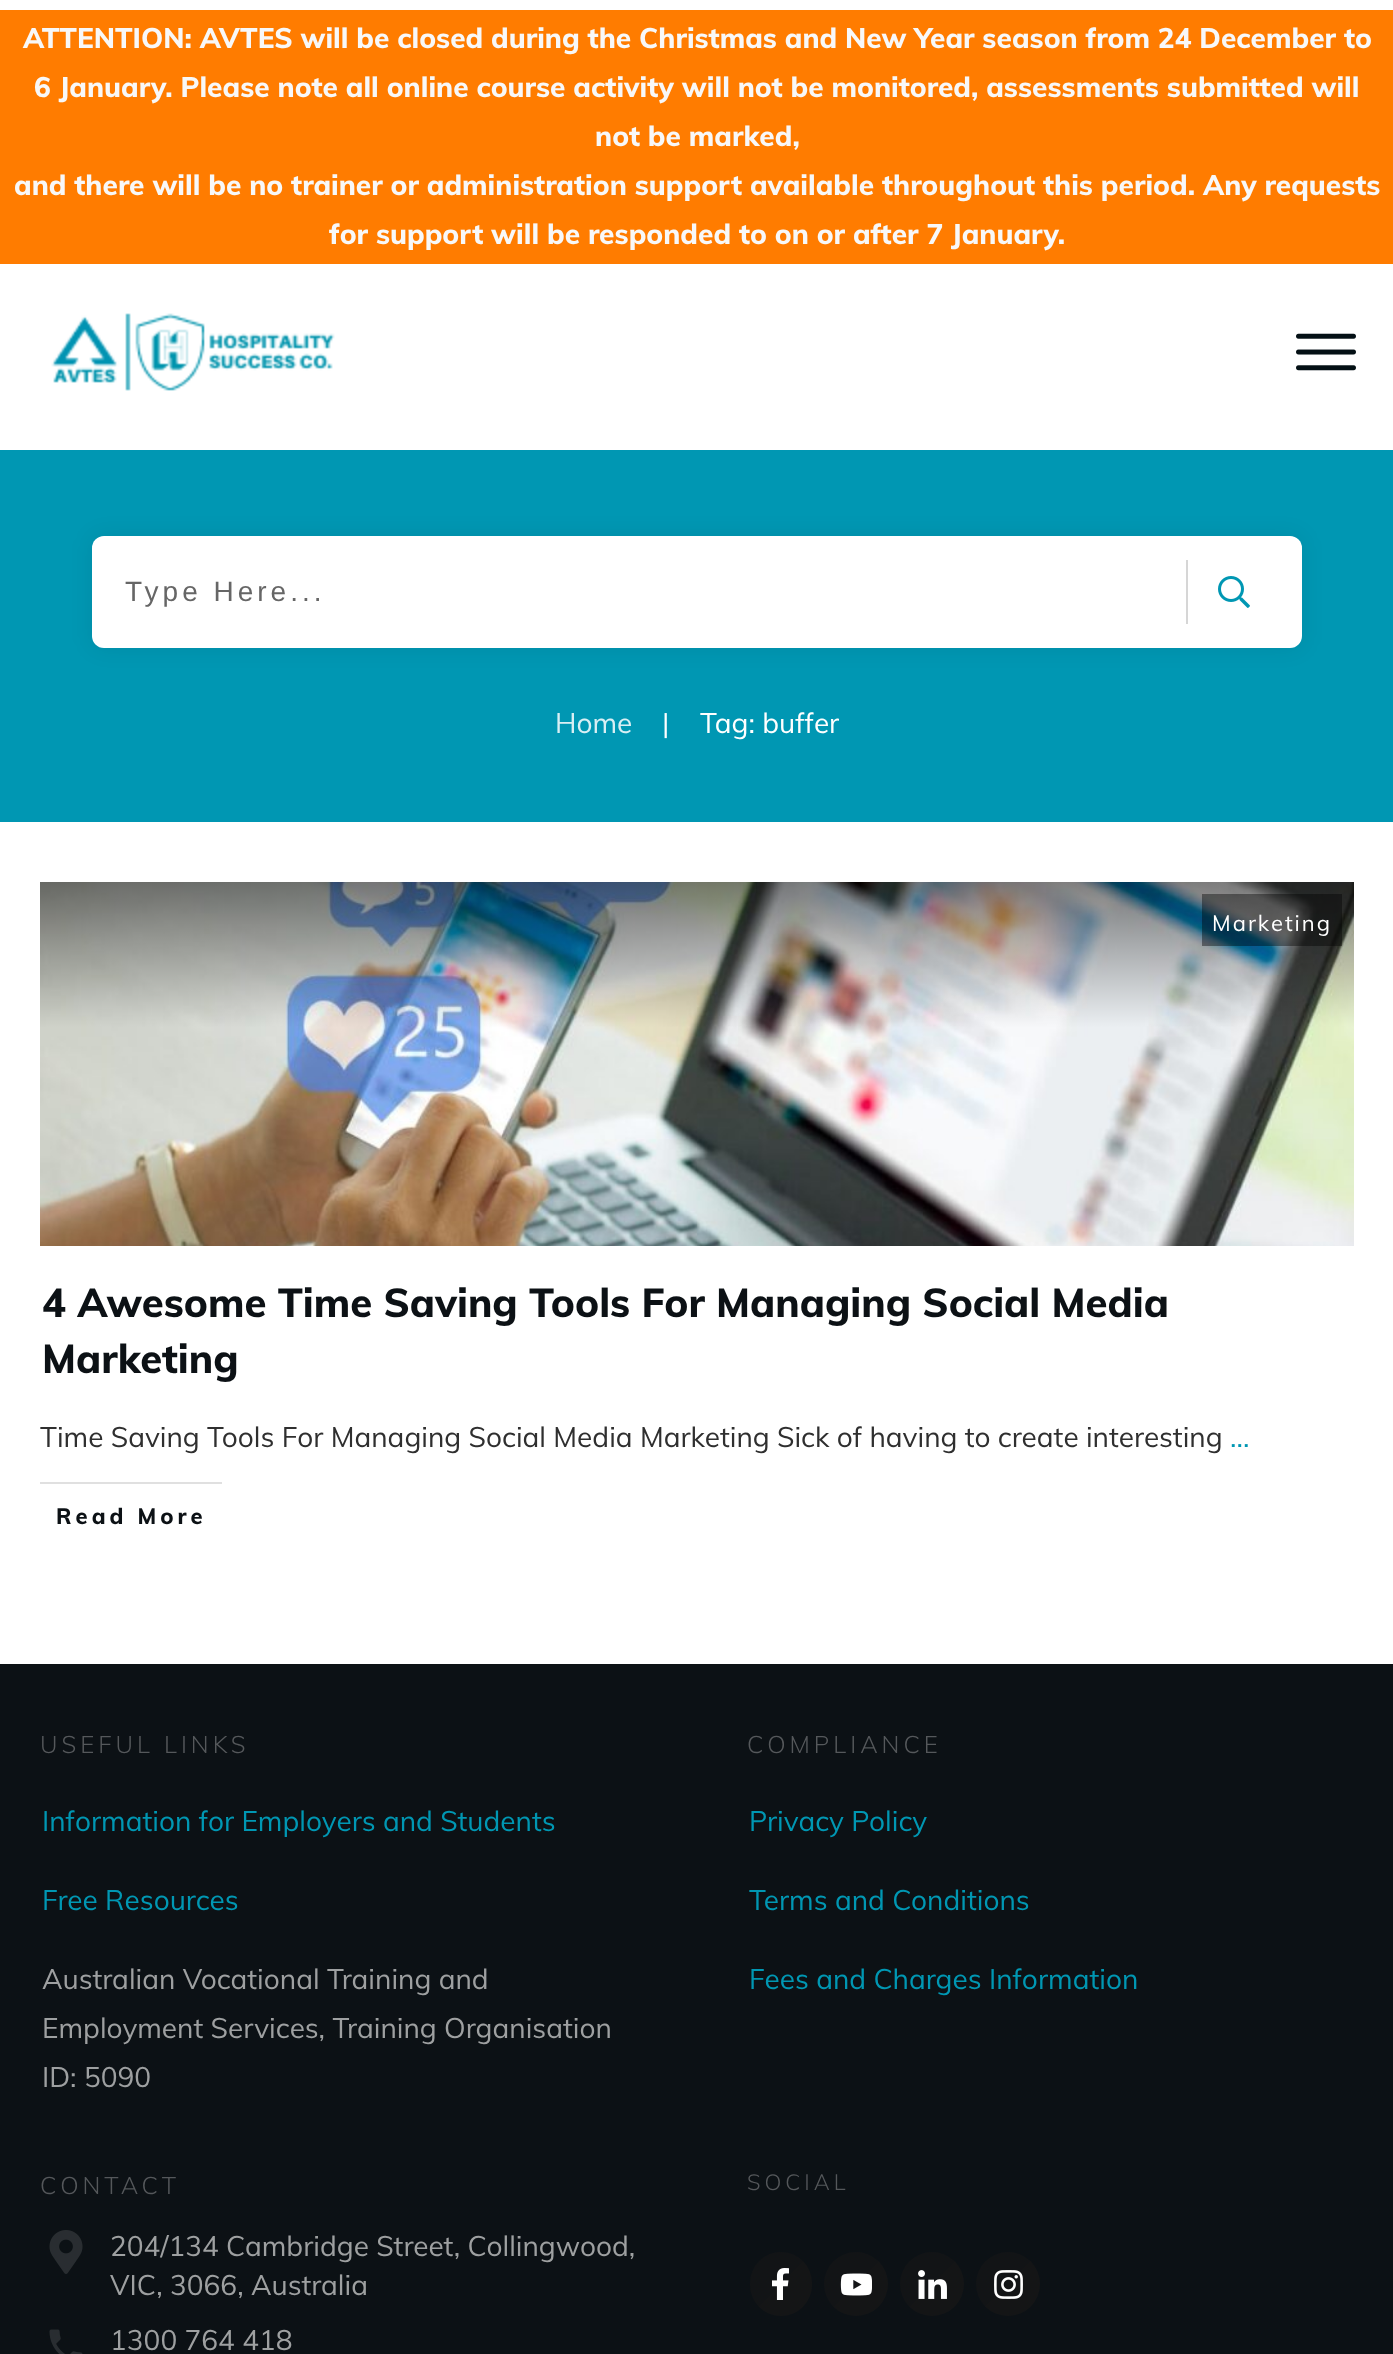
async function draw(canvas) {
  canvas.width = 1393
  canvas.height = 2354
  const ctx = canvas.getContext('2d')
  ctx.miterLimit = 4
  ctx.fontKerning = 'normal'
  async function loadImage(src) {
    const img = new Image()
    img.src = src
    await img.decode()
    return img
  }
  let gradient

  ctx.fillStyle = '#fff'
  ctx.fillRect(0, 0, 1393, 2354)
  ctx.fillStyle = '#ff7c00'
  ctx.fillRect(0, 10, 1393, 254)
  ctx.font = '800 28px Muli'
  ctx.fillStyle = '#f8f8f8'
  ctx.fillText('ATTENTION: AVTES will be closed during the Christmas and New Year season from 24 December to', 23, 48)
  ctx.fillText('6 January. Please note all online course activity will not be monitored, assessments submitted will', 34, 97)
  ctx.fillText('not be marked,', 595, 146)
  ctx.fillText('and there will be no trainer or administration support available throughout this period. Any requests', 14, 195)
  ctx.fillText('for support will be responded to on or after 7 January.', 329, 244)
  ctx.drawImage(await loadImage('image0.png'), 51, 313, 284, 78)
  ctx.drawImage(await loadImage('image1.png'), 1296, 333, 60, 38)
  ctx.fillStyle = '#0097b3'
  ctx.fillRect(0, 450, 1393, 372)
  ctx.fillStyle = '#00000014'
  ctx.filter = 'blur(11px)'
  ctx.beginPath()
  ctx.roundRect(92, 536, 1210, 112, 12)
  ctx.fill()
  ctx.filter = 'none'
  ctx.fillStyle = '#fff'
  ctx.beginPath()
  ctx.roundRect(92, 536, 1210, 112, 12)
  ctx.fill()
  ctx.letterSpacing = '4px'
  ctx.font = '28px Liberation Sans'
  ctx.fillStyle = '#666'
  ctx.fillText('Type Here...', 125, 601)
  ctx.fillStyle = '#d6d6d6'
  ctx.fillRect(1186, 560, 2, 64)
  ctx.drawImage(await loadImage('image2.png'), 1218, 576, 32, 32)
  ctx.letterSpacing = '0px'
  ctx.font = '28px Muli'
  ctx.fillStyle = '#d9eff4'
  ctx.fillText('Home', 555, 733)
  ctx.fillStyle = '#fff'
  ctx.fillText('|', 662, 733)
  ctx.fillText('Tag: buffer', 700, 733)
  ctx.drawImage(await loadImage('image3.png'), 40, 882, 1314, 364)
  ctx.fillStyle = '#00000066'
  ctx.fillRect(1202, 894, 140, 52)
  ctx.letterSpacing = '2px'
  ctx.font = '22px Muli'
  ctx.fillStyle = '#fff'
  ctx.fillText('Marketing', 1212, 931)
  ctx.letterSpacing = '0px'
  ctx.font = '800 40px Muli'
  ctx.fillStyle = '#0c1115'
  ctx.fillText('4 Awesome Time Saving Tools For Managing Social Media', 42, 1317)
  ctx.fillText('Marketing', 42, 1373)
  ctx.font = '28px Muli'
  ctx.fillStyle = '#2f2f2f'
  ctx.fillText('Time Saving Tools For Managing Social Media Marketing Sick of having to create interesting', 40, 1447)
  ctx.fillStyle = '#0097b3'
  ctx.fillText('...', 1230, 1447)
  ctx.fillStyle = '#e0e0e0'
  ctx.fillRect(40, 1482, 182, 2)
  ctx.letterSpacing = '4px'
  ctx.font = '800 22px Muli'
  ctx.fillStyle = '#0c1115'
  ctx.fillText('Read More', 56, 1524)
  ctx.fillRect(0, 1664, 1393, 690)
  ctx.font = '300 24px Muli'
  ctx.fillStyle = '#55585b'
  ctx.fillText('USEFUL LINKS', 40, 1753)
  ctx.letterSpacing = '0px'
  ctx.font = '28px Muli'
  ctx.fillStyle = '#0097b3'
  ctx.fillText('Information for Employers and Students', 42, 1831)
  ctx.fillText('Free Resources', 42, 1910)
  ctx.fillStyle = '#9ea0a1'
  ctx.fillText('Australian Vocational Training and', 42, 1989)
  ctx.fillText('Employment Services, Training Organisation', 42, 2038)
  ctx.fillText('ID: 5090', 42, 2087)
  ctx.letterSpacing = '4px'
  ctx.font = '300 24px Muli'
  ctx.fillStyle = '#55585b'
  ctx.fillText('COMPLIANCE', 747, 1753)
  ctx.letterSpacing = '0px'
  ctx.font = '28px Muli'
  ctx.fillStyle = '#0097b3'
  ctx.fillText('Privacy Policy', 749, 1831)
  ctx.fillText('Terms and Conditions', 749, 1910)
  ctx.fillText('Fees and Charges Information', 749, 1989)
  ctx.letterSpacing = '4px'
  ctx.font = '300 24px Muli'
  ctx.fillStyle = '#55585b'
  ctx.fillText('CONTACT', 40, 2194)
  ctx.drawImage(await loadImage('image4.png'), 49, 2230, 34, 44)
  ctx.letterSpacing = '0px'
  ctx.font = '28px Muli'
  ctx.fillStyle = '#9ea0a1'
  ctx.fillText('204/134 Cambridge Street, Collingwood,', 110, 2256)
  ctx.fillText('VIC, 3066, Australia', 110, 2295)
  ctx.drawImage(await loadImage('image5.png'), 49, 2329, 34, 25)
  ctx.fillText('1300 764 418', 110, 2350)
  ctx.letterSpacing = '4px'
  ctx.font = '300 22px Muli'
  ctx.fillStyle = '#55585b'
  ctx.fillText('SOCIAL', 747, 2190)
  gradient = ctx.createLinearGradient(749, 2253, 813, 2315)
  gradient.addColorStop(0.5, '#121416')
  gradient.addColorStop(0.5, '#141516')
  ctx.fillStyle = gradient
  ctx.beginPath()
  ctx.roundRect(750, 2252, 62, 64, 31)
  ctx.fill()
  ctx.drawImage(await loadImage('image6.png'), 772, 2268, 17, 32)
  gradient = ctx.createLinearGradient(824, 2252, 888, 2316)
  gradient.addColorStop(0.5, '#121416')
  gradient.addColorStop(0.5, '#141516')
  ctx.fillStyle = gradient
  ctx.beginPath()
  ctx.arc(856, 2284, 32, 0, 2 * Math.PI)
  ctx.fill()
  ctx.drawImage(await loadImage('image7.png'), 840, 2273, 32, 23)
  gradient = ctx.createLinearGradient(900, 2252, 964, 2316)
  gradient.addColorStop(0.5, '#121416')
  gradient.addColorStop(0.5, '#141516')
  ctx.fillStyle = gradient
  ctx.beginPath()
  ctx.arc(932, 2284, 32, 0, 2 * Math.PI)
  ctx.fill()
  ctx.drawImage(await loadImage('image8.png'), 918, 2270, 29, 29)
  gradient = ctx.createLinearGradient(976, 2252, 1040, 2316)
  gradient.addColorStop(0.5, '#121416')
  gradient.addColorStop(0.5, '#141516')
  ctx.fillStyle = gradient
  ctx.beginPath()
  ctx.arc(1008, 2284, 32, 0, 2 * Math.PI)
  ctx.fill()
  ctx.drawImage(await loadImage('image9.png'), 994, 2270, 29, 29)
}

draw(document.querySelector('canvas'))
